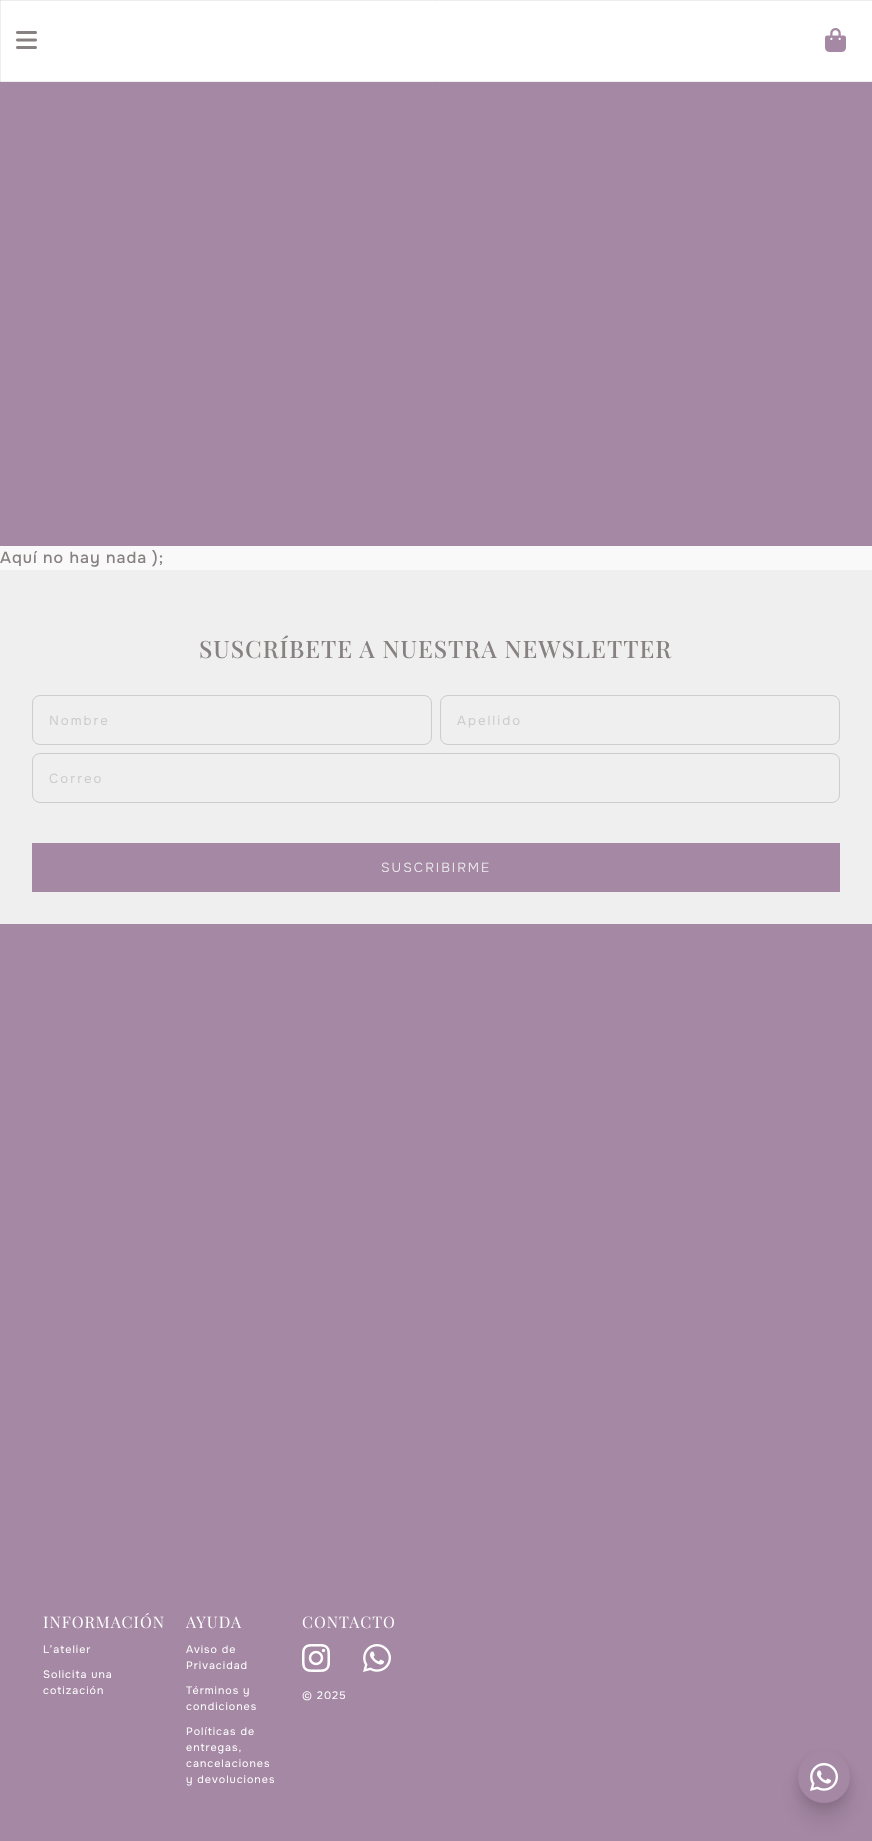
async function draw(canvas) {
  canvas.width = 872
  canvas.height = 1841
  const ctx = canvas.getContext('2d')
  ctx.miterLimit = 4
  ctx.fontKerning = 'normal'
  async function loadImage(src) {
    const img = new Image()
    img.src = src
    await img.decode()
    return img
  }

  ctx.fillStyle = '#a588a4'
  ctx.fillRect(0, 0, 872, 1841)
  ctx.fillStyle = '#fff'
  ctx.beginPath()
  ctx.rect(0.5, 0.5, 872, 81)
  ctx.fill()
  ctx.strokeStyle = '#eee'
  ctx.stroke()
  ctx.drawImage(await loadImage('image0.png'), 16, 31, 21, 18)
  ctx.drawImage(await loadImage('image1.png'), 825, 28, 21, 24)
  ctx.fillStyle = '#f9f9f9'
  ctx.fillRect(0, 546, 872, 24)
  ctx.letterSpacing = '1px'
  ctx.font = '500 16px Onest'
  ctx.fillStyle = '#878181'
  ctx.fillText('Aquí no hay nada );', 0, 563)
  ctx.fillStyle = '#efefef'
  ctx.fillRect(0, 570, 872, 354)
  ctx.font = '500 24px Playfair Display'
  ctx.fillStyle = '#878181'
  ctx.fillText('SUSCRÍBETE A NUESTRA NEWSLETTER', 199, 658)
  ctx.beginPath()
  ctx.roundRect(32.5, 695.5, 399, 49, 7.5)
  ctx.strokeStyle = '#ccc'
  ctx.stroke()
  ctx.letterSpacing = '2px'
  ctx.font = '13.25px Onest'
  ctx.fillStyle = '#ccc'
  ctx.fillText('Nombre', 49, 725)
  ctx.beginPath()
  ctx.roundRect(440.5, 695.5, 399, 49, 7.5)
  ctx.stroke()
  ctx.fillText('Apellido', 457, 725)
  ctx.beginPath()
  ctx.roundRect(32.5, 753.5, 807, 49, 7.5)
  ctx.stroke()
  ctx.fillText('Correo', 49, 783)
  ctx.fillStyle = '#a588a4'
  ctx.fillRect(32, 843, 808, 49)
  ctx.font = '300 13.25px Onest'
  ctx.fillStyle = '#efefef'
  ctx.fillText('SUSCRIBIRME', 381, 872)
  ctx.letterSpacing = '1px'
  ctx.font = '16px Playfair Display'
  ctx.fillStyle = '#fff'
  ctx.fillText('INFORMACIÓN', 43, 1628)
  ctx.font = '10.75px Onest'
  ctx.fillText('L’atelier', 43, 1653)
  ctx.fillText('Solicita una', 43, 1678)
  ctx.fillText('cotización', 43, 1694)
  ctx.font = '16px Playfair Display'
  ctx.fillText('AYUDA', 186, 1628)
  ctx.font = '10.75px Onest'
  ctx.fillText('Aviso de', 186, 1653)
  ctx.fillText('Privacidad', 186, 1669)
  ctx.fillText('Términos y', 186, 1694)
  ctx.fillText('condiciones', 186, 1710)
  ctx.fillText('Políticas de', 186, 1735)
  ctx.fillText('entregas,', 186, 1751)
  ctx.fillText('cancelaciones', 186, 1767)
  ctx.fillText('y devoluciones', 186, 1783)
  ctx.font = '16px Playfair Display'
  ctx.fillText('CONTACTO', 302, 1628)
  ctx.drawImage(await loadImage('image2.png'), 302, 1644, 28, 28)
  ctx.drawImage(await loadImage('image3.png'), 363, 1644, 28, 28)
  ctx.font = '10.75px Onest'
  ctx.fillText('© 2025', 302, 1699)
  ctx.fillStyle = '#0000001a'
  ctx.filter = 'blur(5px)'
  ctx.beginPath()
  ctx.roundRect(798, 1756, 52, 52, 26)
  ctx.fill()
  ctx.filter = 'none'
  ctx.fillStyle = '#00000017'
  ctx.filter = 'blur(9px)'
  ctx.beginPath()
  ctx.roundRect(798, 1769, 52, 52, 26)
  ctx.fill()
  ctx.filter = 'none'
  ctx.fillStyle = '#a588a4'
  ctx.beginPath()
  ctx.arc(824, 1777, 26, 0, 2 * Math.PI)
  ctx.fill()
  ctx.drawImage(await loadImage('image3.png'), 810, 1763, 28, 28)
}

draw(document.querySelector('canvas'))
